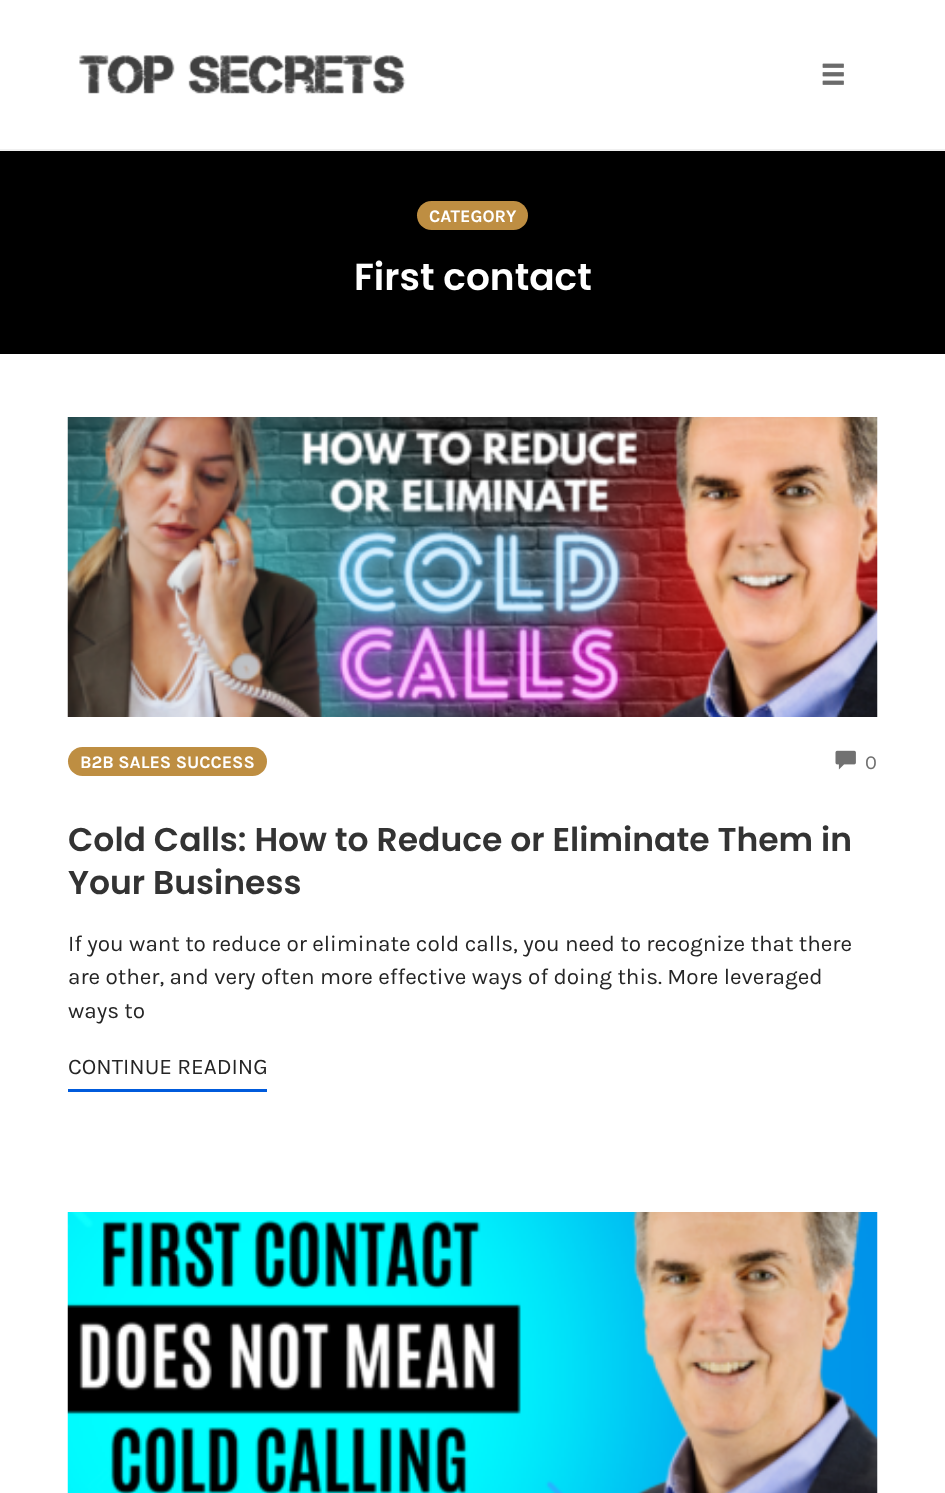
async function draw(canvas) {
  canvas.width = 945
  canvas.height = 1493
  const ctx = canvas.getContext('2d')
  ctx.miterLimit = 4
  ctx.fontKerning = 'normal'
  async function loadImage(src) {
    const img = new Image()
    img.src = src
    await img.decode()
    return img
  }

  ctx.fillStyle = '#fff'
  ctx.fillRect(0, 0, 945, 1493)
  ctx.fillStyle = '#f0f0f0'
  ctx.fillRect(0, 149, 945, 2)
  ctx.drawImage(await loadImage('image0.png'), 79, 55, 327, 39)
  ctx.drawImage(await loadImage('image1.png'), 822, 63, 22, 22)
  ctx.fillStyle = '#000'
  ctx.fillRect(0, 151, 945, 203)
  ctx.fillStyle = '#be8e42'
  ctx.beginPath()
  ctx.roundRect(417, 201, 111, 29, 14.5)
  ctx.fill()
  ctx.font = 'bold 17.75px Karla'
  ctx.fillStyle = '#fff'
  ctx.fillText('CATEGORY', 429, 222)
  ctx.font = '600 37.5px Poppins'
  ctx.fillText('First contact', 354, 290)
  ctx.drawImage(await loadImage('image2.png'), 67, 417, 811, 300)
  ctx.fillStyle = '#be8e42'
  ctx.beginPath()
  ctx.roundRect(68, 747, 199, 29, 14.5)
  ctx.fill()
  ctx.font = 'bold 17.75px Karla'
  ctx.fillStyle = '#fff'
  ctx.fillText('B2B SALES SUCCESS', 80, 768)
  ctx.drawImage(await loadImage('image3.png'), 835, 750, 21, 20)
  ctx.font = '20px Karla'
  ctx.fillStyle = '#707070'
  ctx.fillText('0', 865, 769)
  ctx.font = '600 33px Poppins'
  ctx.fillStyle = '#333'
  ctx.fillText('Cold Calls: How to Reduce or Eliminate Them in', 68, 851)
  ctx.fillText('Your Business', 68, 894)
  ctx.font = '22.5px Karla'
  ctx.fillStyle = '#252525'
  ctx.fillText('If you want to reduce or eliminate cold calls, you need to recognize that there', 68, 951)
  ctx.fillText('are other, and very often more effective ways of doing this. More leveraged', 68, 984)
  ctx.fillText('ways to', 68, 1018)
  ctx.fillText('CONTINUE READING', 68, 1074)
  ctx.fillStyle = '#005bdc'
  ctx.fillRect(68, 1089, 199, 3)
  ctx.drawImage(await loadImage('image4.png'), 67, 1212, 811, 281)
}

draw(document.querySelector('canvas'))
